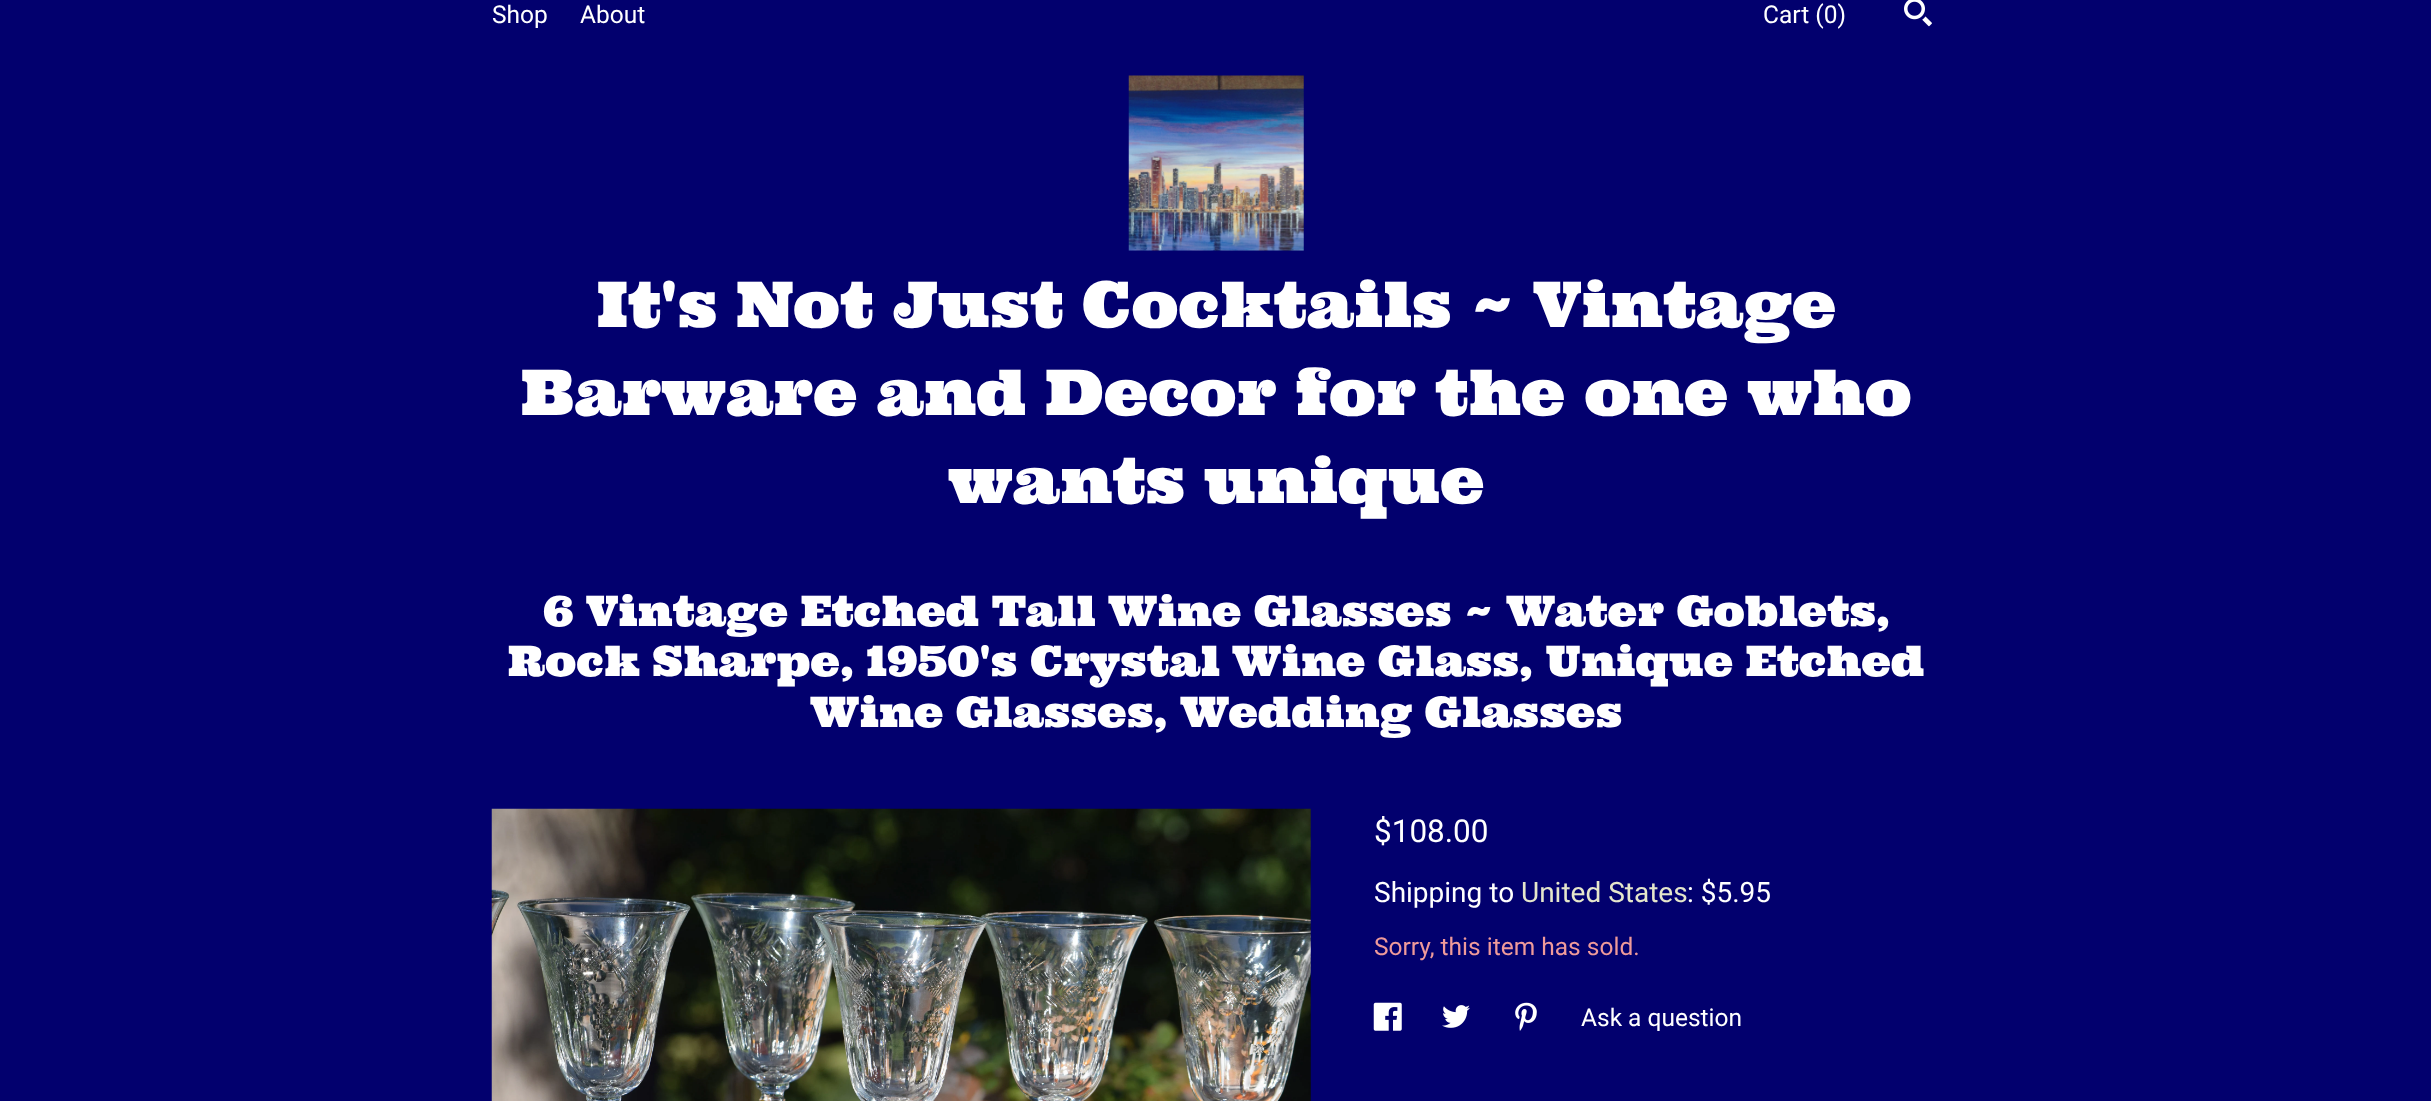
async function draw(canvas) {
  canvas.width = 2431
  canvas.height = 1101
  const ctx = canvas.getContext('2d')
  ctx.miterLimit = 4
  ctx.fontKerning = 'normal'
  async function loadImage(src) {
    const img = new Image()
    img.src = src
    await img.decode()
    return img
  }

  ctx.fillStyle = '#02006e'
  ctx.fillRect(0, 0, 2431, 1101)
  ctx.font = '24.5px Roboto'
  ctx.fillStyle = '#fff'
  ctx.fillText('Shop', 492, 23)
  ctx.fillText('About', 580, 23)
  ctx.fillText('Cart (0)', 1763, 23)
  ctx.drawImage(await loadImage('image0.png'), 1904, 0, 28, 27)
  ctx.drawImage(await loadImage('image1.png'), 1128, 75, 176, 176)
  ctx.font = '63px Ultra'
  ctx.fillText('It\'s Not Just Cocktails ~ Vintage', 597, 327)
  ctx.fillText('Barware and Decor for the one who', 521, 415)
  ctx.fillText('wants unique', 948, 503)
  ctx.font = '42px Ultra'
  ctx.fillText('6 Vintage Etched Tall Wine Glasses ~ Water Goblets,', 543, 626)
  ctx.fillText('Rock Sharpe, 1950\'s Crystal Wine Glass, Unique Etched', 508, 676)
  ctx.fillText('Wine Glasses, Wedding Glasses', 810, 727)
  ctx.drawImage(await loadImage('image2.png'), 491, 808, 820, 293)
  ctx.font = '31.5px Roboto'
  ctx.fillText('$108.00', 1374, 842)
  ctx.font = '28px Roboto'
  ctx.fillText('Shipping to', 1374, 902)
  ctx.fillStyle = '#e5e6cb'
  ctx.fillText('United States', 1521, 902)
  ctx.fillStyle = '#fff'
  ctx.fillText(': $5.95', 1687, 902)
  ctx.font = '24.5px Roboto'
  ctx.fillStyle = '#ef9a9a'
  ctx.fillText('Sorry, this item has sold.', 1374, 955)
  ctx.drawImage(await loadImage('image3.png'), 1373, 1002, 29, 29)
  ctx.drawImage(await loadImage('image4.png'), 1442, 1005, 28, 23)
  ctx.drawImage(await loadImage('image5.png'), 1515, 1002, 22, 29)
  ctx.fillStyle = '#fff'
  ctx.fillText('Ask a question', 1581, 1026)
}

draw(document.querySelector('canvas'))
